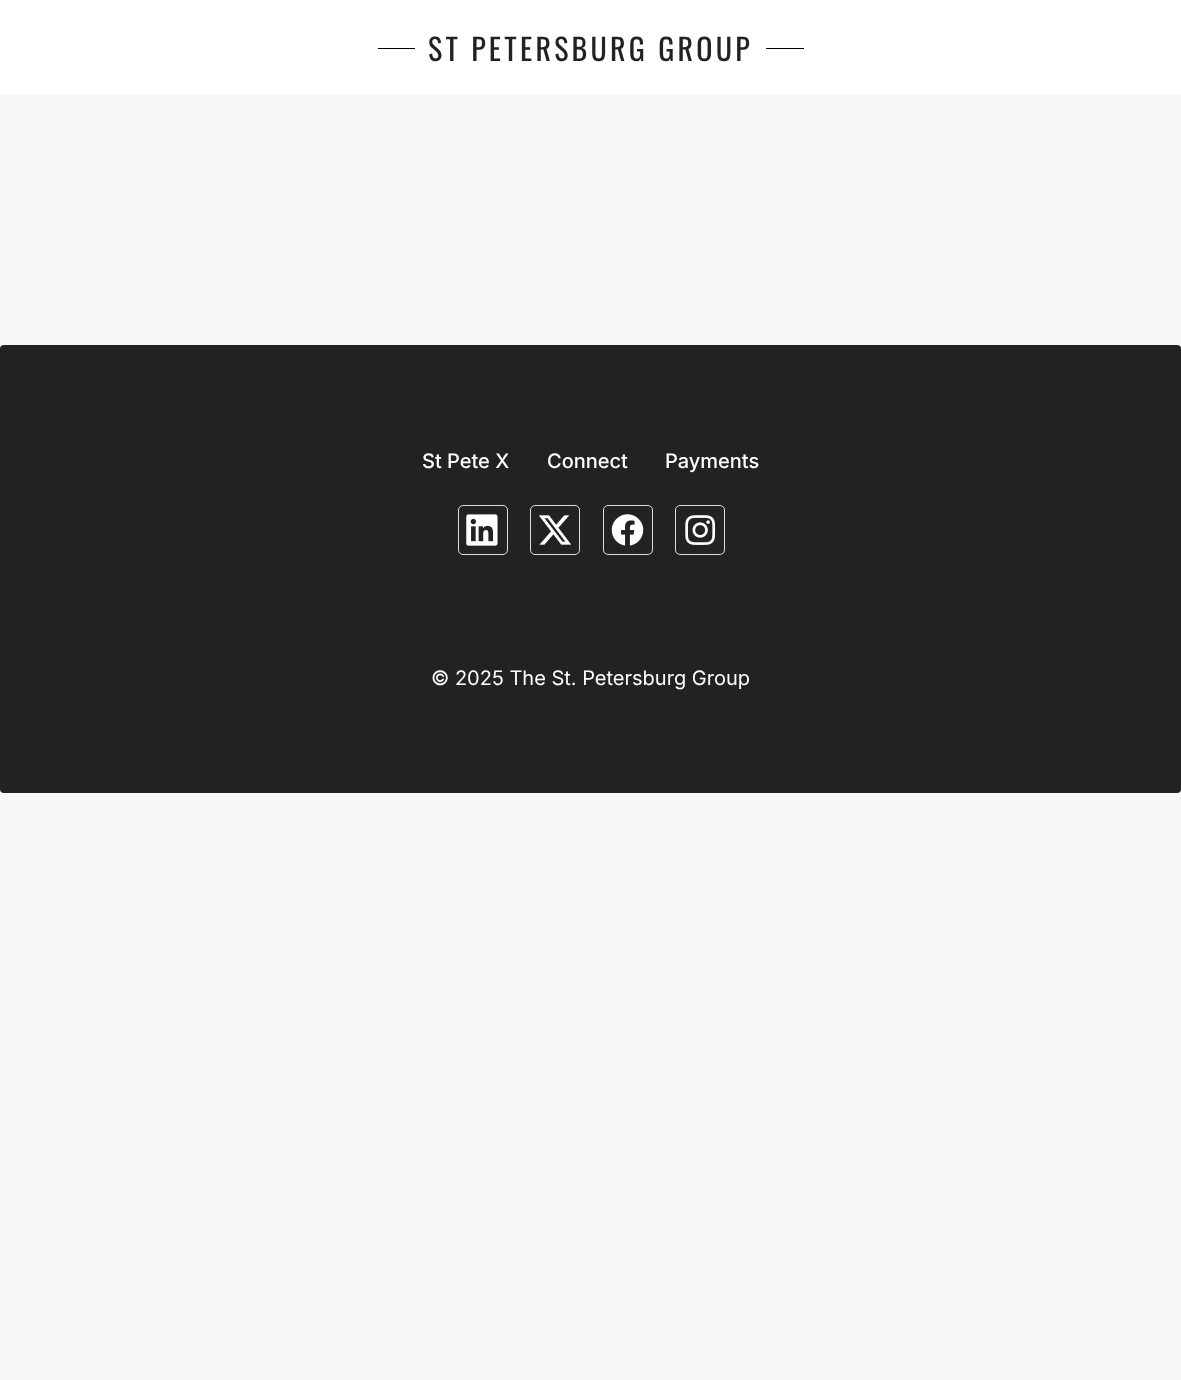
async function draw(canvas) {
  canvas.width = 1181
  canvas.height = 1380
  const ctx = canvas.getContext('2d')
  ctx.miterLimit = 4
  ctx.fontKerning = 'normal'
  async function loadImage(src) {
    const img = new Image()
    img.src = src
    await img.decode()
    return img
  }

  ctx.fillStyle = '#f8f8f8'
  ctx.fillRect(0, 0, 1181, 1380)
  ctx.fillStyle = '#fff'
  ctx.fillRect(0, 0, 1181, 95)
  ctx.fillStyle = '#000'
  ctx.fillRect(378, 48, 37, 1)
  ctx.letterSpacing = '3.25px'
  ctx.font = '30px Oswald'
  ctx.fillStyle = '#222'
  ctx.fillText('ST PETERSBURG GROUP', 428, 61)
  ctx.fillStyle = '#000'
  ctx.fillRect(766, 48, 38, 1)
  ctx.fillStyle = '#222'
  ctx.beginPath()
  ctx.roundRect(0, 345, 1181, 448, 4)
  ctx.fill()
  ctx.letterSpacing = '0px'
  ctx.font = '500 20px Inter'
  ctx.fillStyle = '#fff'
  ctx.fillText('St Pete X', 422, 468)
  ctx.fillText('Connect', 547, 468)
  ctx.fillText('Payments', 665, 468)
  ctx.beginPath()
  ctx.roundRect(458.5, 505.5, 49, 49, 4.5)
  ctx.strokeStyle = '#dddedf'
  ctx.stroke()
  ctx.drawImage(await loadImage('image0.png'), 466, 514, 32, 32)
  ctx.beginPath()
  ctx.roundRect(530.5, 505.5, 49, 49, 4.5)
  ctx.stroke()
  ctx.drawImage(await loadImage('image1.png'), 538, 515, 34, 30)
  ctx.beginPath()
  ctx.roundRect(603.5, 505.5, 49, 49, 4.5)
  ctx.stroke()
  ctx.drawImage(await loadImage('image2.png'), 611, 514, 33, 32)
  ctx.beginPath()
  ctx.roundRect(675.5, 505.5, 49, 49, 4.5)
  ctx.stroke()
  ctx.drawImage(await loadImage('image3.png'), 685, 515, 31, 30)
  ctx.font = '20px Inter'
  ctx.fillText('© 2025 The St. Petersburg Group', 431, 685)
}

draw(document.querySelector('canvas'))
